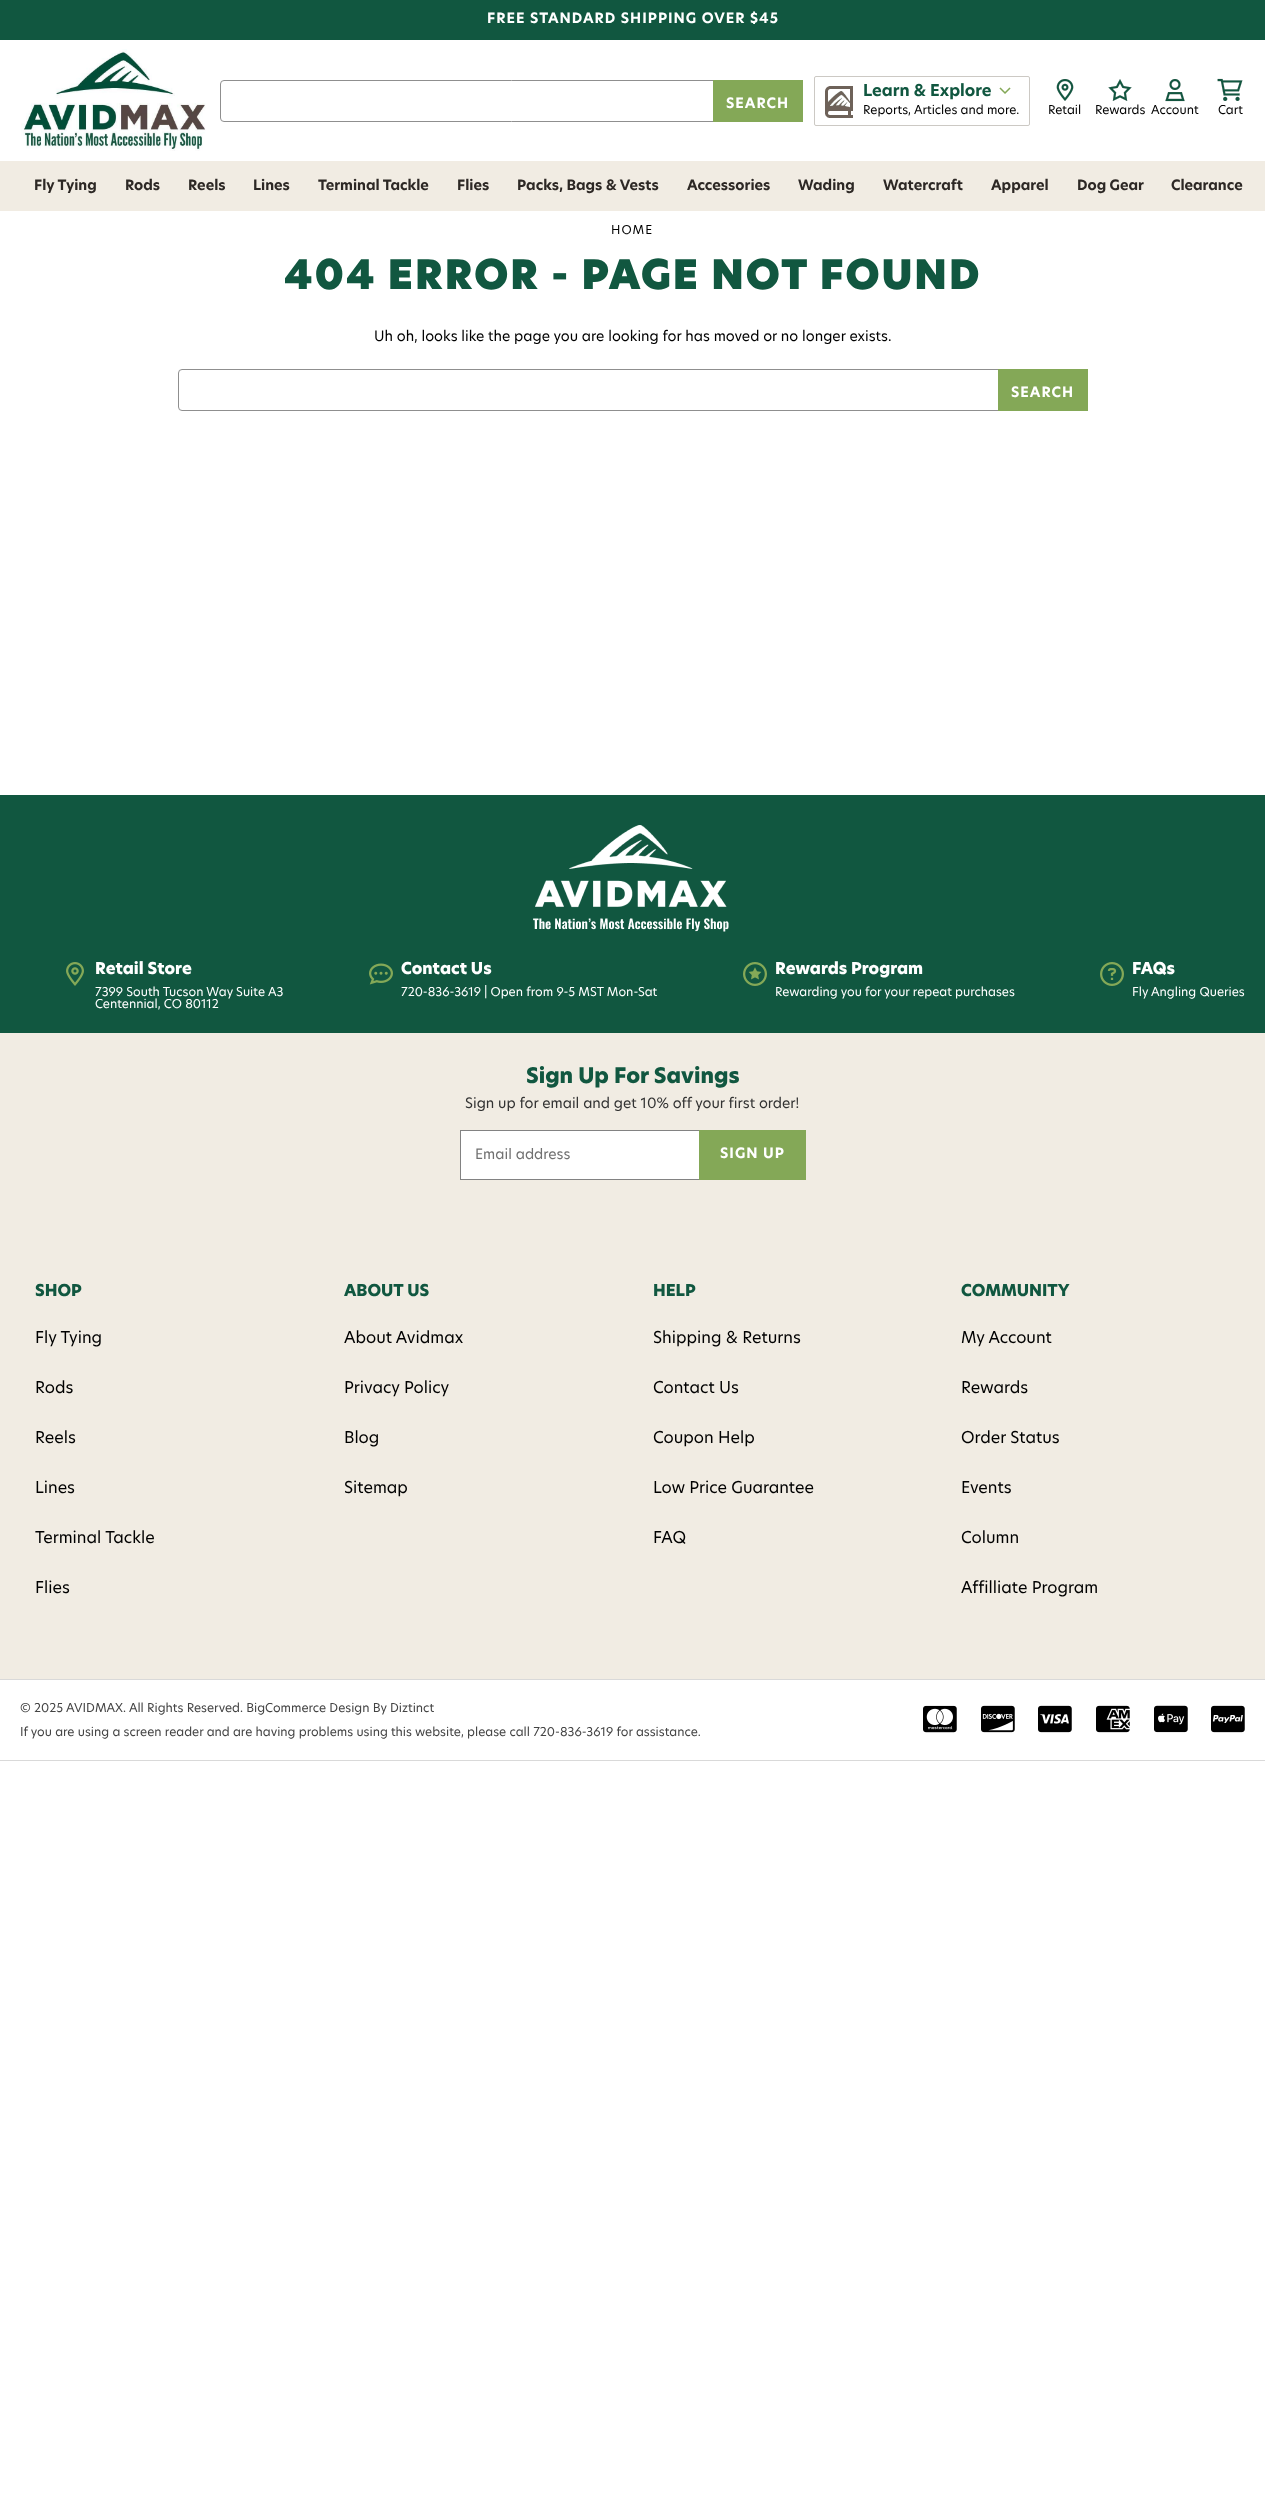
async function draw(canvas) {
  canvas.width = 1265
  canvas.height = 2516
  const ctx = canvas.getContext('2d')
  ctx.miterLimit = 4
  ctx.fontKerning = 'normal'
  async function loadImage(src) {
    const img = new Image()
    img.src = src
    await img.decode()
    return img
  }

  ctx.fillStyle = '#fff'
  ctx.fillRect(0, 0, 1265, 2516)
  ctx.fillStyle = '#115740'
  ctx.fillRect(0, 0, 1265, 40)
  ctx.letterSpacing = '1px'
  ctx.font = 'bold 14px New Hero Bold'
  ctx.fillStyle = '#fff'
  ctx.fillText('FREE STANDARD SHIPPING OVER $45', 487, 23)
  ctx.drawImage(await loadImage('image0.png'), 21, 49, 185, 102)
  ctx.beginPath()
  ctx.roundRect(220.5, 80.5, 582, 41, 3.5)
  ctx.strokeStyle = '#8f8f8f'
  ctx.stroke()
  ctx.fillStyle = '#84a857'
  ctx.fillRect(713, 80, 90, 42)
  ctx.fillStyle = '#fff'
  ctx.fillText('SEARCH', 726, 108)
  ctx.beginPath()
  ctx.roundRect(814.5, 76.5, 215, 49, 1.5)
  ctx.strokeStyle = '#ccc9c4'
  ctx.stroke()
  ctx.drawImage(await loadImage('image1.png'), 825, 86, 28, 32)
  ctx.letterSpacing = '0px'
  ctx.font = 'bold 16px New Hero Bold'
  ctx.fillStyle = '#115740'
  ctx.fillText('Learn & Explore', 863, 96)
  ctx.drawImage(await loadImage('image2.png'), 999, 87, 12, 7)
  ctx.font = '12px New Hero'
  ctx.fillStyle = '#000'
  ctx.fillText('Reports, Articles and more.', 863, 114)
  ctx.drawImage(await loadImage('image3.png'), 1056, 79, 18, 22)
  ctx.fillText('Retail', 1048, 114)
  ctx.drawImage(await loadImage('image4.png'), 1108, 79, 24, 22)
  ctx.fillText('Rewards', 1095, 114)
  ctx.drawImage(await loadImage('image5.png'), 1165, 79, 20, 23)
  ctx.fillText('Account', 1151, 114)
  ctx.drawImage(await loadImage('image6.png'), 1217, 78, 26, 23)
  ctx.fillText('Cart', 1218, 114)
  ctx.fillStyle = '#f1ece3'
  ctx.fillRect(0, 161, 1265, 50)
  ctx.font = 'bold 14px New Hero Bold'
  ctx.fillStyle = '#2d2825'
  ctx.fillText('Fly Tying', 34, 190)
  ctx.fillText('Rods', 125, 190)
  ctx.fillText('Reels', 188, 190)
  ctx.fillText('Lines', 253, 190)
  ctx.fillText('Terminal Tackle', 318, 190)
  ctx.fillText('Flies', 457, 190)
  ctx.fillText('Packs, Bags & Vests', 517, 190)
  ctx.fillText('Accessories', 687, 190)
  ctx.fillText('Wading', 798, 190)
  ctx.fillText('Watercraft', 883, 190)
  ctx.fillText('Apparel', 991, 190)
  ctx.fillText('Dog Gear', 1077, 190)
  ctx.fillText('Clearance', 1171, 190)
  ctx.letterSpacing = '1px'
  ctx.font = '12px New Hero'
  ctx.fillStyle = '#000'
  ctx.fillText('HOME', 611, 234)
  ctx.letterSpacing = '2px'
  ctx.font = '900 40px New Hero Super'
  ctx.fillStyle = '#115740'
  ctx.fillText('404 ERROR - PAGE NOT FOUND', 284, 289)
  ctx.letterSpacing = '0px'
  ctx.font = '14px New Hero'
  ctx.fillStyle = '#000'
  ctx.fillText('Uh oh, looks like the page you are looking for has moved or no longer exists.', 374, 341)
  ctx.beginPath()
  ctx.roundRect(178.5, 369.5, 909, 41, 3.5)
  ctx.strokeStyle = '#8f8f8f'
  ctx.stroke()
  ctx.fillStyle = '#84a857'
  ctx.fillRect(998, 369, 90, 42)
  ctx.letterSpacing = '1px'
  ctx.font = 'bold 14px New Hero Bold'
  ctx.fillStyle = '#fff'
  ctx.fillText('SEARCH', 1011, 397)
  ctx.fillStyle = '#f1ece3'
  ctx.fillRect(0, 1033, 1265, 646)
  ctx.fillStyle = '#115740'
  ctx.fillRect(0, 795, 1265, 238)
  ctx.drawImage(await loadImage('image7.png'), 533, 825, 196, 107)
  ctx.drawImage(await loadImage('image8.png'), 66, 962, 18, 24)
  ctx.letterSpacing = '0px'
  ctx.font = '800 16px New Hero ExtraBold'
  ctx.fillStyle = '#fff'
  ctx.fillText('Retail Store', 95, 974)
  ctx.font = '12px New Hero'
  ctx.fillText('7399 South Tucson Way Suite A3', 95, 996)
  ctx.fillText('Centennial, CO 80112', 95, 1008)
  ctx.drawImage(await loadImage('image9.png'), 369, 963, 24, 22)
  ctx.font = '800 16px New Hero ExtraBold'
  ctx.fillText('Contact Us', 401, 974)
  ctx.font = '12px New Hero'
  ctx.fillText('720-836-3619 | Open from 9-5 MST Mon-Sat', 401, 996)
  ctx.drawImage(await loadImage('image10.png'), 743, 962, 24, 24)
  ctx.font = '800 16px New Hero ExtraBold'
  ctx.fillText('Rewards Program', 775, 974)
  ctx.font = '12px New Hero'
  ctx.fillText('Rewarding you for your repeat purchases', 775, 996)
  ctx.drawImage(await loadImage('image11.png'), 1100, 962, 24, 24)
  ctx.font = '800 16px New Hero ExtraBold'
  ctx.fillText('FAQs', 1132, 974)
  ctx.font = '12px New Hero'
  ctx.fillText('Fly Angling Queries', 1132, 996)
  ctx.font = '800 21px New Hero ExtraBold'
  ctx.fillStyle = '#115740'
  ctx.fillText('Sign Up For Savings', 526, 1083)
  ctx.font = '14px New Hero'
  ctx.fillStyle = '#333'
  ctx.fillText('Sign up for email and get 10% off your first order!', 465, 1108)
  ctx.fillStyle = '#fff'
  ctx.fillRect(461, 1131, 238, 48)
  ctx.fillStyle = '#828282'
  ctx.fillRect(460, 1130, 239, 1)
  ctx.fillRect(460, 1179, 239, 1)
  ctx.fillRect(460, 1130, 1, 50)
  ctx.save()
  ctx.beginPath()
  ctx.rect(475, 1148, 210, 15)
  ctx.clip()
  ctx.fillStyle = '#707070'
  ctx.fillText('Email address', 475, 1159)
  ctx.restore()
  ctx.fillStyle = '#84a857'
  ctx.fillRect(699, 1130, 107, 50)
  ctx.letterSpacing = '1px'
  ctx.font = 'bold 14px New Hero Bold'
  ctx.fillStyle = '#fff'
  ctx.fillText('SIGN UP', 720, 1158)
  ctx.letterSpacing = '0px'
  ctx.font = '800 16px New Hero ExtraBold'
  ctx.fillStyle = '#115740'
  ctx.fillText('SHOP', 35, 1296)
  ctx.font = '16px New Hero'
  ctx.fillStyle = '#000'
  ctx.fillText('Fly Tying', 35, 1343)
  ctx.fillText('Rods', 35, 1393)
  ctx.fillText('Reels', 35, 1443)
  ctx.fillText('Lines', 35, 1493)
  ctx.fillText('Terminal Tackle', 35, 1543)
  ctx.fillText('Flies', 35, 1593)
  ctx.font = '800 16px New Hero ExtraBold'
  ctx.fillStyle = '#115740'
  ctx.fillText('ABOUT US', 344, 1296)
  ctx.font = '16px New Hero'
  ctx.fillStyle = '#000'
  ctx.fillText('About Avidmax', 344, 1343)
  ctx.fillText('Privacy Policy', 344, 1393)
  ctx.fillText('Blog', 344, 1443)
  ctx.fillText('Sitemap', 344, 1493)
  ctx.font = '800 16px New Hero ExtraBold'
  ctx.fillStyle = '#115740'
  ctx.fillText('HELP', 653, 1296)
  ctx.font = '16px New Hero'
  ctx.fillStyle = '#000'
  ctx.fillText('Shipping & Returns', 653, 1343)
  ctx.fillText('Contact Us', 653, 1393)
  ctx.fillText('Coupon Help', 653, 1443)
  ctx.fillText('Low Price Guarantee', 653, 1493)
  ctx.fillText('FAQ', 653, 1543)
  ctx.font = '800 16px New Hero ExtraBold'
  ctx.fillStyle = '#115740'
  ctx.fillText('COMMUNITY', 961, 1296)
  ctx.font = '16px New Hero'
  ctx.fillStyle = '#000'
  ctx.fillText('My Account', 961, 1343)
  ctx.fillText('Rewards', 961, 1393)
  ctx.fillText('Order Status', 961, 1443)
  ctx.fillText('Events', 961, 1493)
  ctx.fillText('Column', 961, 1543)
  ctx.fillText('Affilliate Program', 961, 1593)
  ctx.fillStyle = '#d9d9d9'
  ctx.fillRect(0, 1679, 1265, 1)
  ctx.fillRect(0, 1760, 1265, 1)
  ctx.font = '12px New Hero'
  ctx.fillStyle = '#444'
  ctx.fillText('© 2025 AVIDMAX. All Rights Reserved. BigCommerce Design By Diztinct', 20, 1712)
  ctx.fillText('If you are using a screen reader and are having problems using this website, please call 720-836-3619 for assistance.', 20, 1736)
  ctx.drawImage(await loadImage('image12.png'), 923, 1705, 34, 28)
  ctx.drawImage(await loadImage('image13.png'), 981, 1705, 34, 28)
  ctx.drawImage(await loadImage('image14.png'), 1038, 1705, 34, 28)
  ctx.drawImage(await loadImage('image15.png'), 1096, 1705, 34, 28)
  ctx.drawImage(await loadImage('image16.png'), 1154, 1705, 34, 28)
  ctx.drawImage(await loadImage('image17.png'), 1211, 1705, 34, 28)
}

draw(document.querySelector('canvas'))
